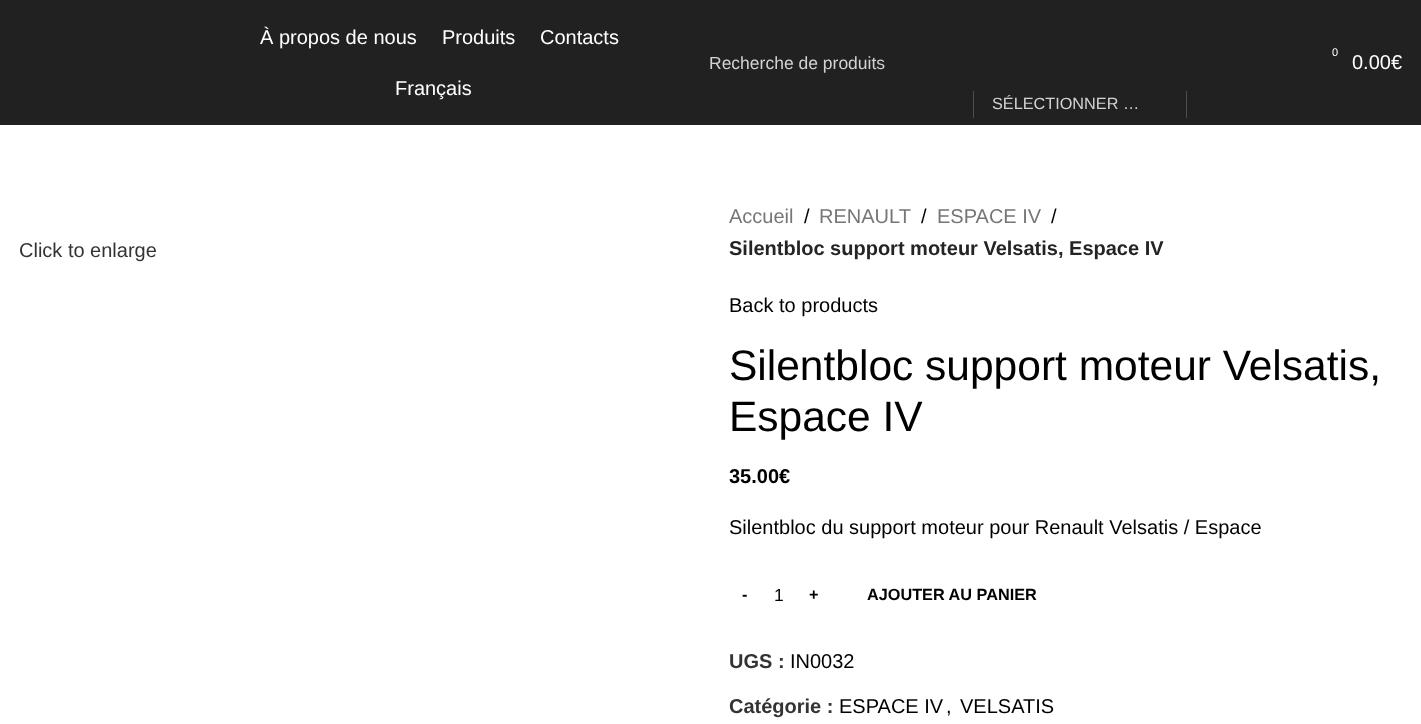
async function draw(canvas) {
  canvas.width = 1421
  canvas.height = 724
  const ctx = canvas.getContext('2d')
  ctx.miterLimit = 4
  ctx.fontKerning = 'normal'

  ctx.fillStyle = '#fff'
  ctx.fillRect(0, 0, 1421, 724)
  ctx.fillStyle = '#212121'
  ctx.fillRect(0, 0, 1421, 125)
  ctx.font = '20px Liberation Sans'
  ctx.fillStyle = '#fff'
  ctx.fillText('À propos de nous', 260, 44)
  ctx.fillText('Produits', 442, 44)
  ctx.fillText('Contacts', 540, 44)
  ctx.fillText('Français', 395, 95)
  ctx.font = '17.5px Liberation Sans'
  ctx.fillStyle = '#d3d3d3'
  ctx.fillText('Recherche de produits', 709, 69)
  ctx.fillStyle = '#4d4d4d'
  ctx.fillRect(1186, 91, 1, 27)
  ctx.fillRect(973, 91, 1, 27)
  ctx.font = '16.25px Liberation Sans'
  ctx.fillStyle = '#d3d3d3'
  ctx.fillText('SÉLECTIONNER …', 992, 109)
  ctx.font = '11px Liberation Sans'
  ctx.fillStyle = '#fff'
  ctx.fillText('0', 1332, 56)
  ctx.font = '20px Liberation Sans'
  ctx.fillText('0.00€', 1352, 69)
  ctx.fillStyle = '#333'
  ctx.fillText('Click to enlarge', 19, 257)
  ctx.fillStyle = '#767676'
  ctx.fillText('Accueil', 729, 223)
  ctx.fillStyle = '#000'
  ctx.fillText('/', 804, 223)
  ctx.fillStyle = '#767676'
  ctx.fillText('RENAULT', 819, 223)
  ctx.fillStyle = '#000'
  ctx.fillText('/', 921, 223)
  ctx.fillStyle = '#767676'
  ctx.fillText('ESPACE IV', 937, 223)
  ctx.fillStyle = '#000'
  ctx.fillText('/', 1051, 223)
  ctx.font = 'bold 20px Liberation Sans'
  ctx.fillStyle = '#242424'
  ctx.fillText('Silentbloc support moteur Velsatis, Espace IV', 729, 255)
  ctx.font = '20px Liberation Sans'
  ctx.fillStyle = '#000'
  ctx.fillText('Back to products', 729, 312)
  ctx.font = '42.5px Liberation Sans'
  ctx.fillText('Silentbloc support moteur Velsatis,', 729, 380)
  ctx.fillText('Espace IV', 729, 431)
  ctx.font = 'bold 20px Liberation Sans'
  ctx.fillText('35.00€', 729, 483)
  ctx.font = '20px Liberation Sans'
  ctx.fillText('Silentbloc du support moteur pour Renault Velsatis / Espace', 729, 534)
  ctx.font = 'bold 16.25px Liberation Sans'
  ctx.fillText('-', 742, 600)
  ctx.font = '17.5px Liberation Sans'
  ctx.fillText('1', 774, 601)
  ctx.font = 'bold 16.25px Liberation Sans'
  ctx.fillText('+', 809, 600)
  ctx.fillText('AJOUTER AU PANIER', 867, 600)
  ctx.font = 'bold 20px Liberation Sans'
  ctx.fillStyle = '#333'
  ctx.fillText('UGS :', 729, 668)
  ctx.font = '20px Liberation Sans'
  ctx.fillStyle = '#000'
  ctx.fillText('IN0032', 790, 668)
  ctx.font = 'bold 20px Liberation Sans'
  ctx.fillStyle = '#333'
  ctx.fillText('Catégorie :', 729, 713)
  ctx.font = '20px Liberation Sans'
  ctx.fillStyle = '#000'
  ctx.fillText('ESPACE IV', 839, 713)
  ctx.fillText(',', 946, 713)
  ctx.fillText('VELSATIS', 960, 713)
}

draw(document.querySelector('canvas'))
